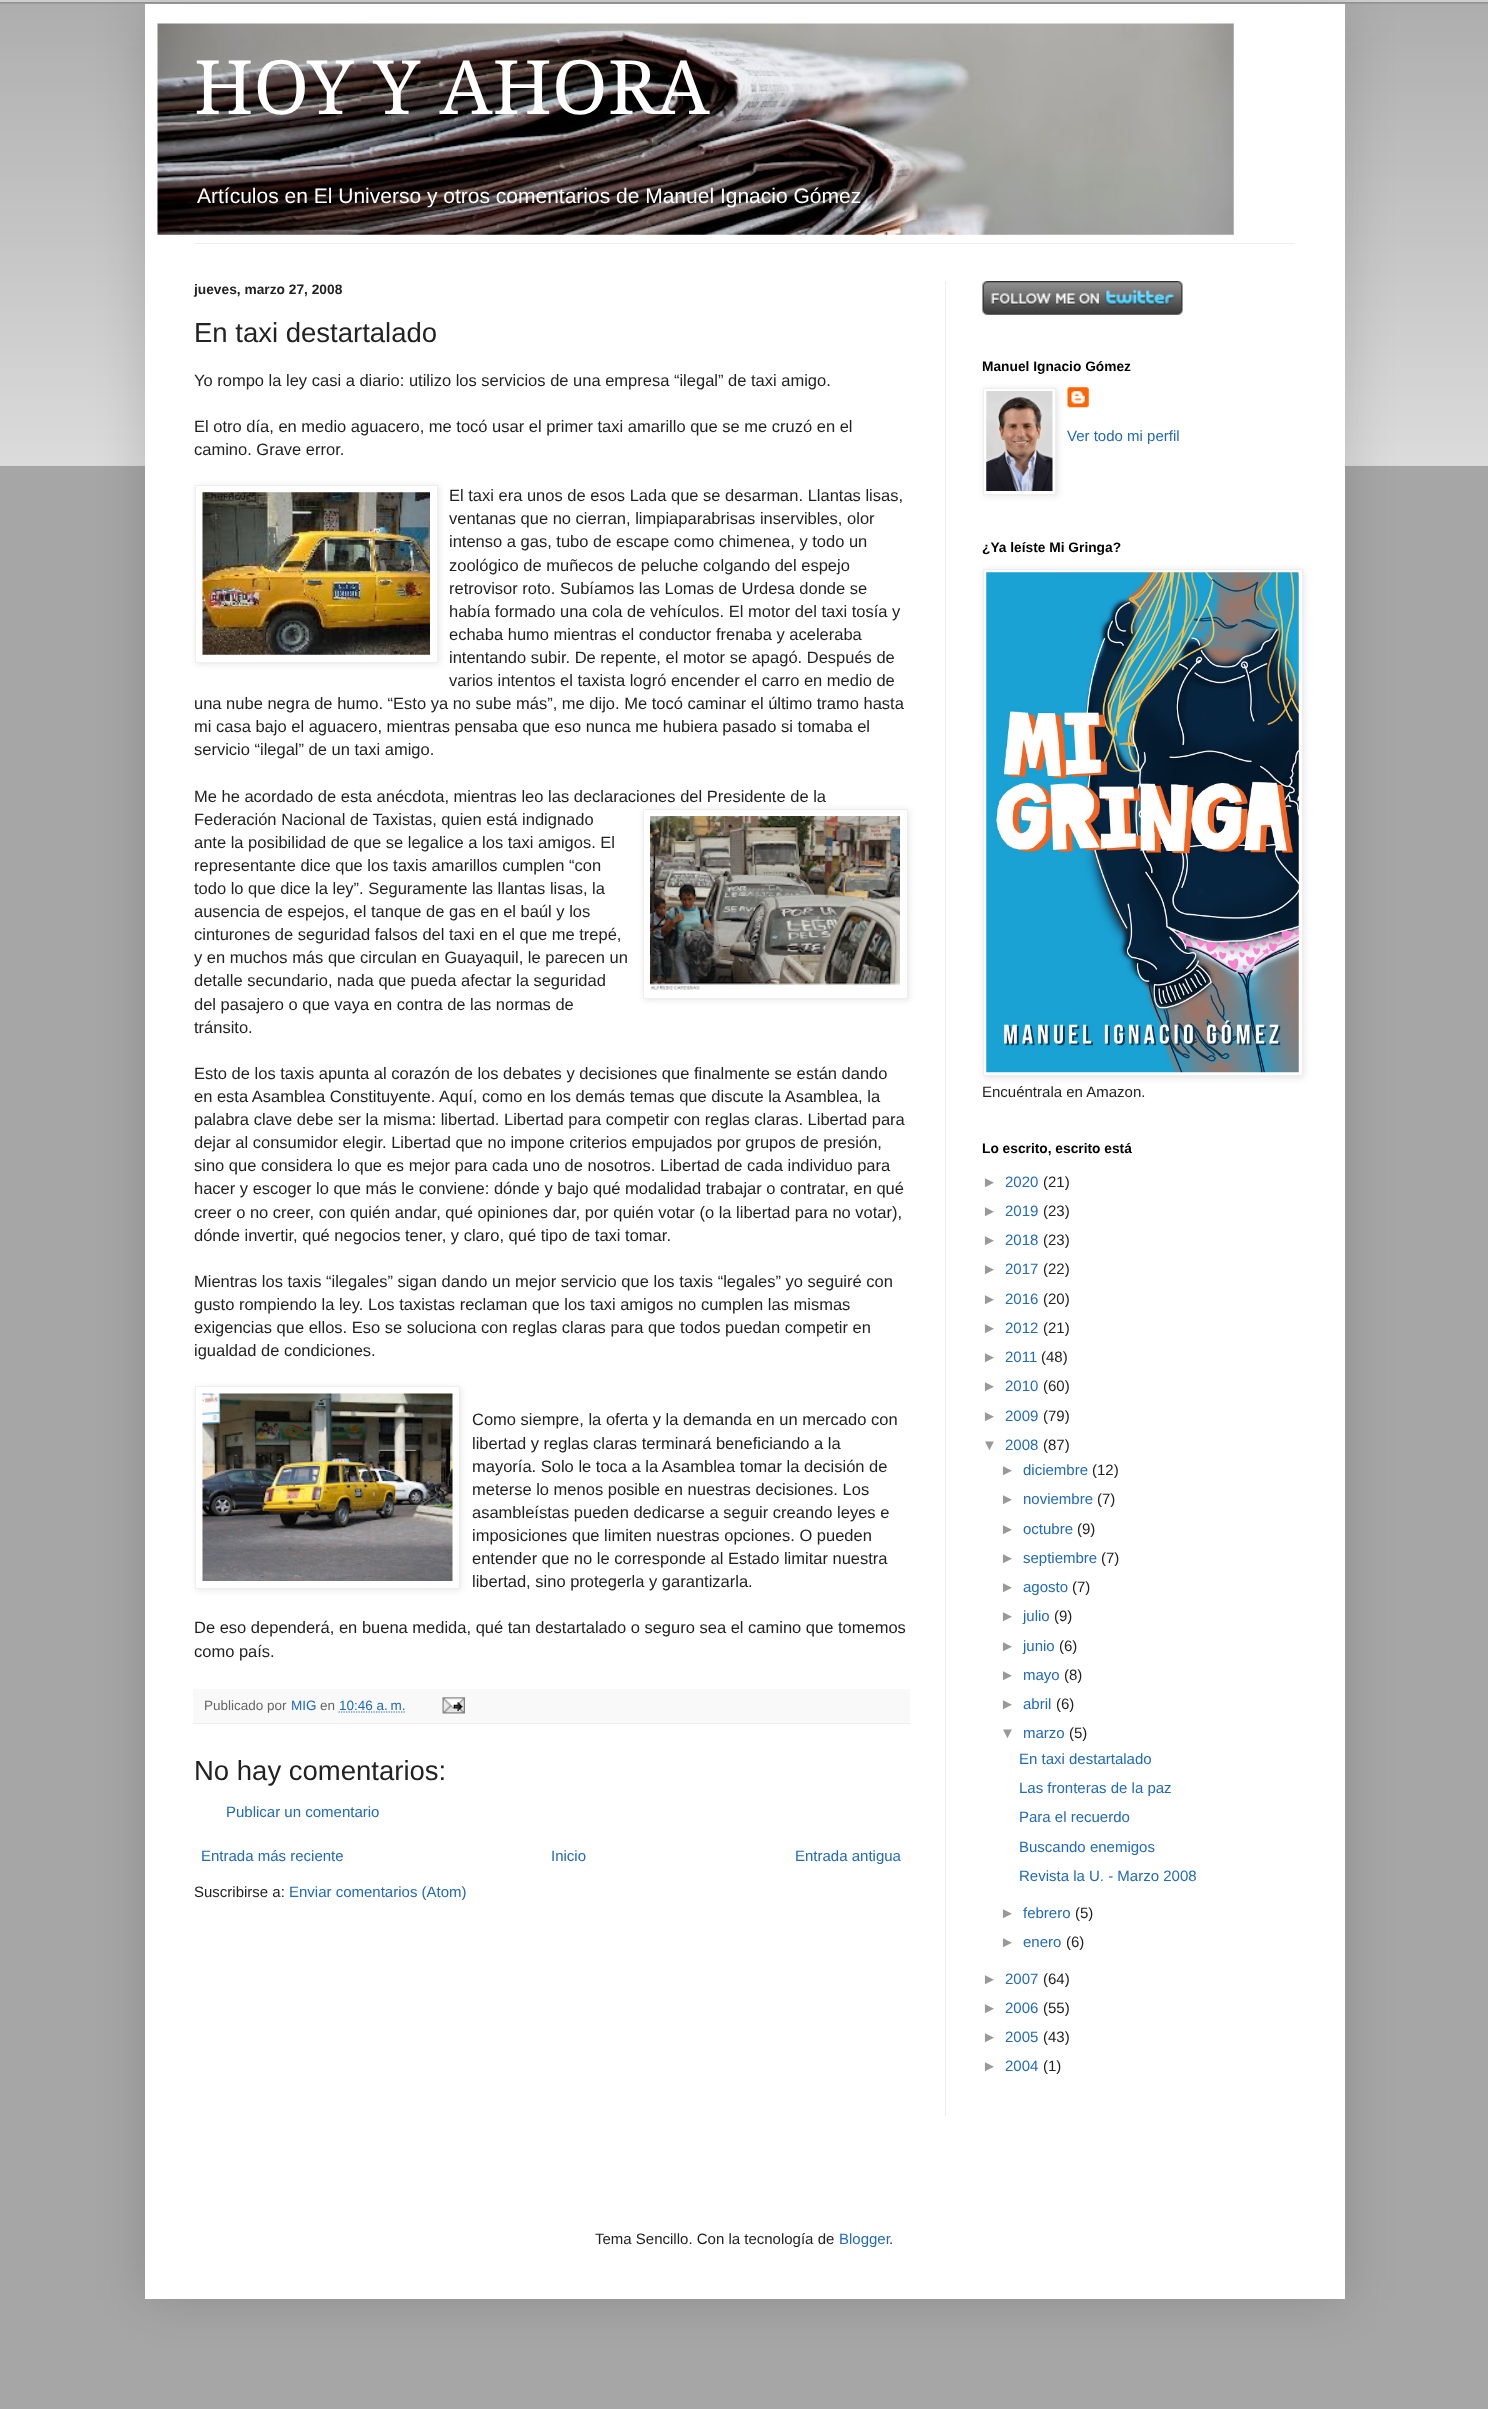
async function draw(canvas) {
  canvas.width = 1488
  canvas.height = 2409
  const ctx = canvas.getContext('2d')
  ctx.miterLimit = 4
  ctx.fontKerning = 'normal'
  async function loadImage(src) {
    const img = new Image()
    img.src = src
    await img.decode()
    return img
  }

  ctx.fillStyle = '#a6a6a6'
  ctx.fillRect(0, 0, 1488, 2409)
  ctx.drawImage(await loadImage('image0.png'), 0, 0, 1488, 466)
  ctx.fillStyle = '#00000026'
  ctx.filter = 'blur(25px)'
  ctx.beginPath()
  ctx.rect(145, 4, 1200, 2295)
  ctx.fill()
  ctx.filter = 'none'
  ctx.drawImage(await loadImage('image1.png'), 0, 0, 1488, 4)
  ctx.fillStyle = '#fff'
  ctx.fillRect(145, 4, 1200, 2295)
  ctx.drawImage(await loadImage('image2.png'), 157, 23, 1077, 212)
  ctx.font = '75px Droid Serif'
  ctx.fillText('HOY Y AHORA', 194, 114)
  ctx.font = '21px Liberation Sans'
  ctx.fillText('Artículos en El Universo y otros comentarios de Manuel Ignacio Gómez', 197, 203)
  ctx.fillStyle = '#eee'
  ctx.fillRect(195, 243, 1100, 1)
  ctx.fillRect(945, 281, 1, 1835)
  ctx.font = 'bold 13.75px Liberation Sans'
  ctx.fillStyle = '#222'
  ctx.fillText('jueves, marzo 27, 2008', 194, 294)
  ctx.font = '27.5px Liberation Sans'
  ctx.fillText('En taxi destartalado', 194, 342)
  ctx.font = '16.5px Liberation Sans'
  ctx.fillText('Yo rompo la ley casi a diario: utilizo los servicios de una empresa “ilegal” de taxi amigo.', 194, 386)
  ctx.fillText('El otro día, en medio aguacero, me tocó usar el primer taxi amarillo que se me cruzó en el', 194, 432)
  ctx.fillText('camino. Grave error.', 194, 455)
  ctx.fillStyle = '#0000001a'
  ctx.filter = 'blur(3px)'
  ctx.beginPath()
  ctx.rect(196, 486, 243, 178)
  ctx.fill()
  ctx.filter = 'none'
  ctx.fillStyle = '#fff'
  ctx.beginPath()
  ctx.rect(195.5, 485.5, 242, 177)
  ctx.fill()
  ctx.strokeStyle = '#eee'
  ctx.stroke()
  ctx.drawImage(await loadImage('image3.png'), 202, 492, 228, 163)
  ctx.fillStyle = '#222'
  ctx.fillText('El taxi era unos de esos Lada que se desarman. Llantas lisas,', 449, 501)
  ctx.fillText('ventanas que no cierran, limpiaparabrisas inservibles, olor', 449, 524)
  ctx.fillText('intenso a gas, tubo de escape como chimenea, y todo un', 449, 547)
  ctx.fillText('zoológico de muñecos de peluche colgando del espejo', 449, 571)
  ctx.fillText('retrovisor roto. Subíamos las Lomas de Urdesa donde se', 449, 594)
  ctx.fillText('había formado una cola de vehículos. El motor del taxi tosía y', 449, 617)
  ctx.fillText('echaba humo mientras el conductor frenaba y aceleraba', 449, 640)
  ctx.fillText('intentando subir. De repente, el motor se apagó. Después de', 449, 663)
  ctx.fillText('varios intentos el taxista logró encender el carro en medio de', 449, 686)
  ctx.fillText('una nube negra de humo. “Esto ya no sube más”, me dijo. Me tocó caminar el último tramo hasta', 194, 709)
  ctx.fillText('mi casa bajo el aguacero, mientras pensaba que eso nunca me hubiera pasado si tomaba el', 194, 732)
  ctx.fillText('servicio “ilegal” de un taxi amigo.', 194, 755)
  ctx.fillText('Me he acordado de esta anécdota, mientras leo las declaraciones del Presidente de la', 194, 802)
  ctx.fillText('Federación Nacional de Taxistas, quien está indignado', 194, 825)
  ctx.fillStyle = '#0000001a'
  ctx.filter = 'blur(3px)'
  ctx.beginPath()
  ctx.rect(644, 810, 265, 190)
  ctx.fill()
  ctx.filter = 'none'
  ctx.fillStyle = '#fff'
  ctx.beginPath()
  ctx.rect(643.5, 809.5, 264, 189)
  ctx.fill()
  ctx.stroke()
  ctx.drawImage(await loadImage('image4.png'), 650, 816, 250, 175)
  ctx.fillStyle = '#222'
  ctx.fillText('ante la posibilidad de que se legalice a los taxi amigos. El', 194, 848)
  ctx.fillText('representante dice que los taxis amarillos cumplen “con', 194, 871)
  ctx.fillText('todo lo que dice la ley”. Seguramente las llantas lisas, la', 194, 894)
  ctx.fillText('ausencia de espejos, el tanque de gas en el baúl y los', 194, 917)
  ctx.fillText('cinturones de seguridad falsos del taxi en el que me trepé,', 194, 940)
  ctx.fillText('y en muchos más que circulan en Guayaquil, le parecen un', 194, 963)
  ctx.fillText('detalle secundario, nada que pueda afectar la seguridad', 194, 986)
  ctx.fillText('del pasajero o que vaya en contra de las normas de', 194, 1010)
  ctx.fillText('tránsito.', 194, 1033)
  ctx.fillText('Esto de los taxis apunta al corazón de los debates y decisiones que finalmente se están dando', 194, 1079)
  ctx.fillText('en esta Asamblea Constituyente. Aquí, como en los demás temas que discute la Asamblea, la', 194, 1102)
  ctx.fillText('palabra clave debe ser la misma: libertad. Libertad para competir con reglas claras. Libertad para', 194, 1125)
  ctx.fillText('dejar al consumidor elegir. Libertad que no impone criterios empujados por grupos de presión,', 194, 1148)
  ctx.fillText('sino que considera lo que es mejor para cada uno de nosotros. Libertad de cada individuo para', 194, 1171)
  ctx.fillText('hacer y escoger lo que más le conviene: dónde y bajo qué modalidad trabajar o contratar, en qué', 194, 1194)
  ctx.fillText('creer o no creer, con quién andar, qué opiniones dar, por quién votar (o la libertad para no votar),', 194, 1218)
  ctx.fillText('dónde invertir, qué negocios tener, y claro, qué tipo de taxi tomar.', 194, 1241)
  ctx.fillText('Mientras los taxis “ilegales” sigan dando un mejor servicio que los taxis “legales” yo seguiré con', 194, 1287)
  ctx.fillText('gusto rompiendo la ley. Los taxistas reclaman que los taxi amigos no cumplen las mismas', 194, 1310)
  ctx.fillText('exigencias que ellos. Eso se soluciona con reglas claras para que todos puedan competir en', 194, 1333)
  ctx.fillText('igualdad de condiciones.', 194, 1356)
  ctx.fillStyle = '#0000001a'
  ctx.filter = 'blur(3px)'
  ctx.beginPath()
  ctx.rect(196, 1388, 265, 202)
  ctx.fill()
  ctx.filter = 'none'
  ctx.fillStyle = '#fff'
  ctx.beginPath()
  ctx.rect(195.5, 1386.5, 264, 202)
  ctx.fill()
  ctx.stroke()
  ctx.drawImage(await loadImage('image5.png'), 202, 1393, 251, 188)
  ctx.fillStyle = '#222'
  ctx.fillText('Como siempre, la oferta y la demanda en un mercado con', 472, 1425)
  ctx.fillText('libertad y reglas claras terminará beneficiando a la', 472, 1449)
  ctx.fillText('mayoría. Solo le toca a la Asamblea tomar la decisión de', 472, 1472)
  ctx.fillText('meterse lo menos posible en nuestras decisiones. Los', 472, 1495)
  ctx.fillText('asambleístas pueden dedicarse a seguir creando leyes e', 472, 1518)
  ctx.fillText('imposiciones que limiten nuestras opciones. O pueden', 472, 1541)
  ctx.fillText('entender que no le corresponde al Estado limitar nuestra', 472, 1564)
  ctx.fillText('libertad, sino protegerla y garantizarla.', 472, 1587)
  ctx.fillText('De eso dependerá, en buena medida, qué tan destartalado o seguro sea el camino que tomemos', 194, 1633)
  ctx.fillText('como país.', 194, 1657)
  ctx.fillStyle = '#f9f9f9'
  ctx.fillRect(193, 1689, 717, 34)
  ctx.fillStyle = '#eee'
  ctx.fillRect(193, 1723, 717, 1)
  ctx.font = '13.5px Liberation Sans'
  ctx.fillStyle = '#666'
  ctx.fillText('Publicado por', 204, 1710)
  ctx.fillStyle = '#2169bb'
  ctx.fillText('MIG', 291, 1710)
  ctx.fillStyle = '#666'
  ctx.fillText('en', 320, 1710)
  ctx.fillStyle = '#2169bb'
  ctx.fillText('10:46 a. m.', 339, 1710)
  ctx.beginPath()
  ctx.moveTo(338.5, 1712)
  ctx.lineTo(405, 1712)
  ctx.strokeStyle = '#2169bb'
  ctx.lineWidth = 1.2
  ctx.setLineDash([1.25, 1.25])
  ctx.stroke()
  ctx.drawImage(await loadImage('image6.png'), 442, 1697, 23, 17)
  ctx.font = '27.5px Liberation Sans'
  ctx.fillStyle = '#222'
  ctx.fillText('No hay comentarios:', 194, 1780)
  ctx.font = '15px Liberation Sans'
  ctx.fillStyle = '#2169bb'
  ctx.fillText('Publicar un comentario', 226, 1817)
  ctx.fillText('Entrada más reciente', 201, 1861)
  ctx.fillText('Inicio', 551, 1861)
  ctx.fillText('Entrada antigua', 795, 1861)
  ctx.fillStyle = '#222'
  ctx.fillText('Suscribirse a:', 194, 1897)
  ctx.fillStyle = '#2169bb'
  ctx.fillText('Enviar comentarios (Atom)', 289, 1897)
  ctx.drawImage(await loadImage('image7.png'), 982, 281, 201, 34)
  ctx.font = 'bold 13.75px Liberation Sans'
  ctx.fillStyle = '#000'
  ctx.fillText('Manuel Ignacio Gómez', 982, 371)
  ctx.drawImage(await loadImage('image9.png'), 1067, 387, 22, 21)
  ctx.save()
  ctx.beginPath()
  ctx.moveTo(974, 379)
  ctx.lineTo(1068, 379)
  ctx.lineTo(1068, 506)
  ctx.lineTo(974, 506)
  ctx.closePath()
  ctx.moveTo(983, 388)
  ctx.lineTo(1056, 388)
  ctx.lineTo(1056, 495)
  ctx.lineTo(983, 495)
  ctx.closePath()
  ctx.clip('evenodd')
  ctx.fillStyle = '#0000001a'
  ctx.filter = 'blur(3px)'
  ctx.beginPath()
  ctx.rect(984, 389, 74, 107)
  ctx.fill()
  ctx.filter = 'none'
  ctx.restore()
  ctx.strokeStyle = '#eee'
  ctx.lineWidth = 1
  ctx.setLineDash([])
  ctx.strokeRect(983.5, 388.5, 72, 106)
  ctx.drawImage(await loadImage('image8.png'), 986, 391, 67, 100)
  ctx.font = '15px Liberation Sans'
  ctx.fillStyle = '#2169bb'
  ctx.fillText('Ver todo mi perfil', 1067, 441)
  ctx.font = 'bold 13.75px Liberation Sans'
  ctx.fillStyle = '#000'
  ctx.fillText('¿Ya leíste Mi Gringa?', 982, 552)
  ctx.fillStyle = '#0000001a'
  ctx.filter = 'blur(3px)'
  ctx.beginPath()
  ctx.rect(984, 570, 320, 508)
  ctx.fill()
  ctx.filter = 'none'
  ctx.fillStyle = '#fff'
  ctx.beginPath()
  ctx.rect(983.5, 569.5, 319, 506)
  ctx.fill()
  ctx.stroke()
  ctx.drawImage(await loadImage('image10.png'), 986, 572, 313, 501)
  ctx.font = '15px Liberation Sans'
  ctx.fillStyle = '#222'
  ctx.fillText('Encuéntrala en Amazon.', 982, 1097)
  ctx.font = 'bold 13.75px Liberation Sans'
  ctx.fillStyle = '#000'
  ctx.fillText('Lo escrito, escrito está', 982, 1153)
  ctx.font = '15px Liberation Sans'
  ctx.fillStyle = '#999'
  ctx.fillText('►', 982, 1187)
  ctx.fillStyle = '#2169bb'
  ctx.fillText('2020', 1005, 1187)
  ctx.fillStyle = '#222'
  ctx.fillText('(21)', 1043, 1187)
  ctx.fillStyle = '#999'
  ctx.fillText('►', 982, 1216)
  ctx.fillStyle = '#2169bb'
  ctx.fillText('2019', 1005, 1216)
  ctx.fillStyle = '#222'
  ctx.fillText('(23)', 1043, 1216)
  ctx.fillStyle = '#999'
  ctx.fillText('►', 982, 1245)
  ctx.fillStyle = '#2169bb'
  ctx.fillText('2018', 1005, 1245)
  ctx.fillStyle = '#222'
  ctx.fillText('(23)', 1043, 1245)
  ctx.fillStyle = '#999'
  ctx.fillText('►', 982, 1274)
  ctx.fillStyle = '#2169bb'
  ctx.fillText('2017', 1005, 1274)
  ctx.fillStyle = '#222'
  ctx.fillText('(22)', 1043, 1274)
  ctx.fillStyle = '#999'
  ctx.fillText('►', 982, 1304)
  ctx.fillStyle = '#2169bb'
  ctx.fillText('2016', 1005, 1304)
  ctx.fillStyle = '#222'
  ctx.fillText('(20)', 1043, 1304)
  ctx.fillStyle = '#999'
  ctx.fillText('►', 982, 1333)
  ctx.fillStyle = '#2169bb'
  ctx.fillText('2012', 1005, 1333)
  ctx.fillStyle = '#222'
  ctx.fillText('(21)', 1043, 1333)
  ctx.fillStyle = '#999'
  ctx.fillText('►', 982, 1362)
  ctx.fillStyle = '#2169bb'
  ctx.fillText('2011', 1005, 1362)
  ctx.fillStyle = '#222'
  ctx.fillText('(48)', 1041, 1362)
  ctx.fillStyle = '#999'
  ctx.fillText('►', 982, 1391)
  ctx.fillStyle = '#2169bb'
  ctx.fillText('2010', 1005, 1391)
  ctx.fillStyle = '#222'
  ctx.fillText('(60)', 1043, 1391)
  ctx.fillStyle = '#999'
  ctx.fillText('►', 982, 1421)
  ctx.fillStyle = '#2169bb'
  ctx.fillText('2009', 1005, 1421)
  ctx.fillStyle = '#222'
  ctx.fillText('(79)', 1043, 1421)
  ctx.fillStyle = '#999'
  ctx.fillText('▼', 982, 1450)
  ctx.fillStyle = '#2169bb'
  ctx.fillText('2008', 1005, 1450)
  ctx.fillStyle = '#222'
  ctx.fillText('(87)', 1043, 1450)
  ctx.fillStyle = '#999'
  ctx.fillText('►', 1000, 1475)
  ctx.fillStyle = '#2169bb'
  ctx.fillText('diciembre', 1023, 1475)
  ctx.fillStyle = '#222'
  ctx.fillText('(12)', 1092, 1475)
  ctx.fillStyle = '#999'
  ctx.fillText('►', 1000, 1504)
  ctx.fillStyle = '#2169bb'
  ctx.fillText('noviembre', 1023, 1504)
  ctx.fillStyle = '#222'
  ctx.fillText('(7)', 1097, 1504)
  ctx.fillStyle = '#999'
  ctx.fillText('►', 1000, 1534)
  ctx.fillStyle = '#2169bb'
  ctx.fillText('octubre', 1023, 1534)
  ctx.fillStyle = '#222'
  ctx.fillText('(9)', 1077, 1534)
  ctx.fillStyle = '#999'
  ctx.fillText('►', 1000, 1563)
  ctx.fillStyle = '#2169bb'
  ctx.fillText('septiembre', 1023, 1563)
  ctx.fillStyle = '#222'
  ctx.fillText('(7)', 1101, 1563)
  ctx.fillStyle = '#999'
  ctx.fillText('►', 1000, 1592)
  ctx.fillStyle = '#2169bb'
  ctx.fillText('agosto', 1023, 1592)
  ctx.fillStyle = '#222'
  ctx.fillText('(7)', 1072, 1592)
  ctx.fillStyle = '#999'
  ctx.fillText('►', 1000, 1621)
  ctx.fillStyle = '#2169bb'
  ctx.fillText('julio', 1023, 1621)
  ctx.fillStyle = '#222'
  ctx.fillText('(9)', 1054, 1621)
  ctx.fillStyle = '#999'
  ctx.fillText('►', 1000, 1651)
  ctx.fillStyle = '#2169bb'
  ctx.fillText('junio', 1023, 1651)
  ctx.fillStyle = '#222'
  ctx.fillText('(6)', 1059, 1651)
  ctx.fillStyle = '#999'
  ctx.fillText('►', 1000, 1680)
  ctx.fillStyle = '#2169bb'
  ctx.fillText('mayo', 1023, 1680)
  ctx.fillStyle = '#222'
  ctx.fillText('(8)', 1064, 1680)
  ctx.fillStyle = '#999'
  ctx.fillText('►', 1000, 1709)
  ctx.fillStyle = '#2169bb'
  ctx.fillText('abril', 1023, 1709)
  ctx.fillStyle = '#222'
  ctx.fillText('(6)', 1056, 1709)
  ctx.fillStyle = '#999'
  ctx.fillText('▼', 1000, 1738)
  ctx.fillStyle = '#2169bb'
  ctx.fillText('marzo', 1023, 1738)
  ctx.fillStyle = '#222'
  ctx.fillText('(5)', 1069, 1738)
  ctx.fillStyle = '#2169bb'
  ctx.fillText('En taxi destartalado', 1019, 1764)
  ctx.fillText('Las fronteras de la paz', 1019, 1793)
  ctx.fillText('Para el recuerdo', 1019, 1822)
  ctx.fillText('Buscando enemigos', 1019, 1852)
  ctx.fillText('Revista la U. - Marzo 2008', 1019, 1881)
  ctx.fillStyle = '#999'
  ctx.fillText('►', 1000, 1918)
  ctx.fillStyle = '#2169bb'
  ctx.fillText('febrero', 1023, 1918)
  ctx.fillStyle = '#222'
  ctx.fillText('(5)', 1075, 1918)
  ctx.fillStyle = '#999'
  ctx.fillText('►', 1000, 1947)
  ctx.fillStyle = '#2169bb'
  ctx.fillText('enero', 1023, 1947)
  ctx.fillStyle = '#222'
  ctx.fillText('(6)', 1066, 1947)
  ctx.fillStyle = '#999'
  ctx.fillText('►', 982, 1984)
  ctx.fillStyle = '#2169bb'
  ctx.fillText('2007', 1005, 1984)
  ctx.fillStyle = '#222'
  ctx.fillText('(64)', 1043, 1984)
  ctx.fillStyle = '#999'
  ctx.fillText('►', 982, 2013)
  ctx.fillStyle = '#2169bb'
  ctx.fillText('2006', 1005, 2013)
  ctx.fillStyle = '#222'
  ctx.fillText('(55)', 1043, 2013)
  ctx.fillStyle = '#999'
  ctx.fillText('►', 982, 2042)
  ctx.fillStyle = '#2169bb'
  ctx.fillText('2005', 1005, 2042)
  ctx.fillStyle = '#222'
  ctx.fillText('(43)', 1043, 2042)
  ctx.fillStyle = '#999'
  ctx.fillText('►', 982, 2071)
  ctx.fillStyle = '#2169bb'
  ctx.fillText('2004', 1005, 2071)
  ctx.fillStyle = '#222'
  ctx.fillText('(1)', 1043, 2071)
  ctx.fillText('Tema Sencillo. Con la tecnología de', 595, 2244)
  ctx.fillStyle = '#2169bb'
  ctx.fillText('Blogger', 839, 2244)
  ctx.fillStyle = '#222'
  ctx.fillText('.', 889, 2244)
}

draw(document.querySelector('canvas'))
